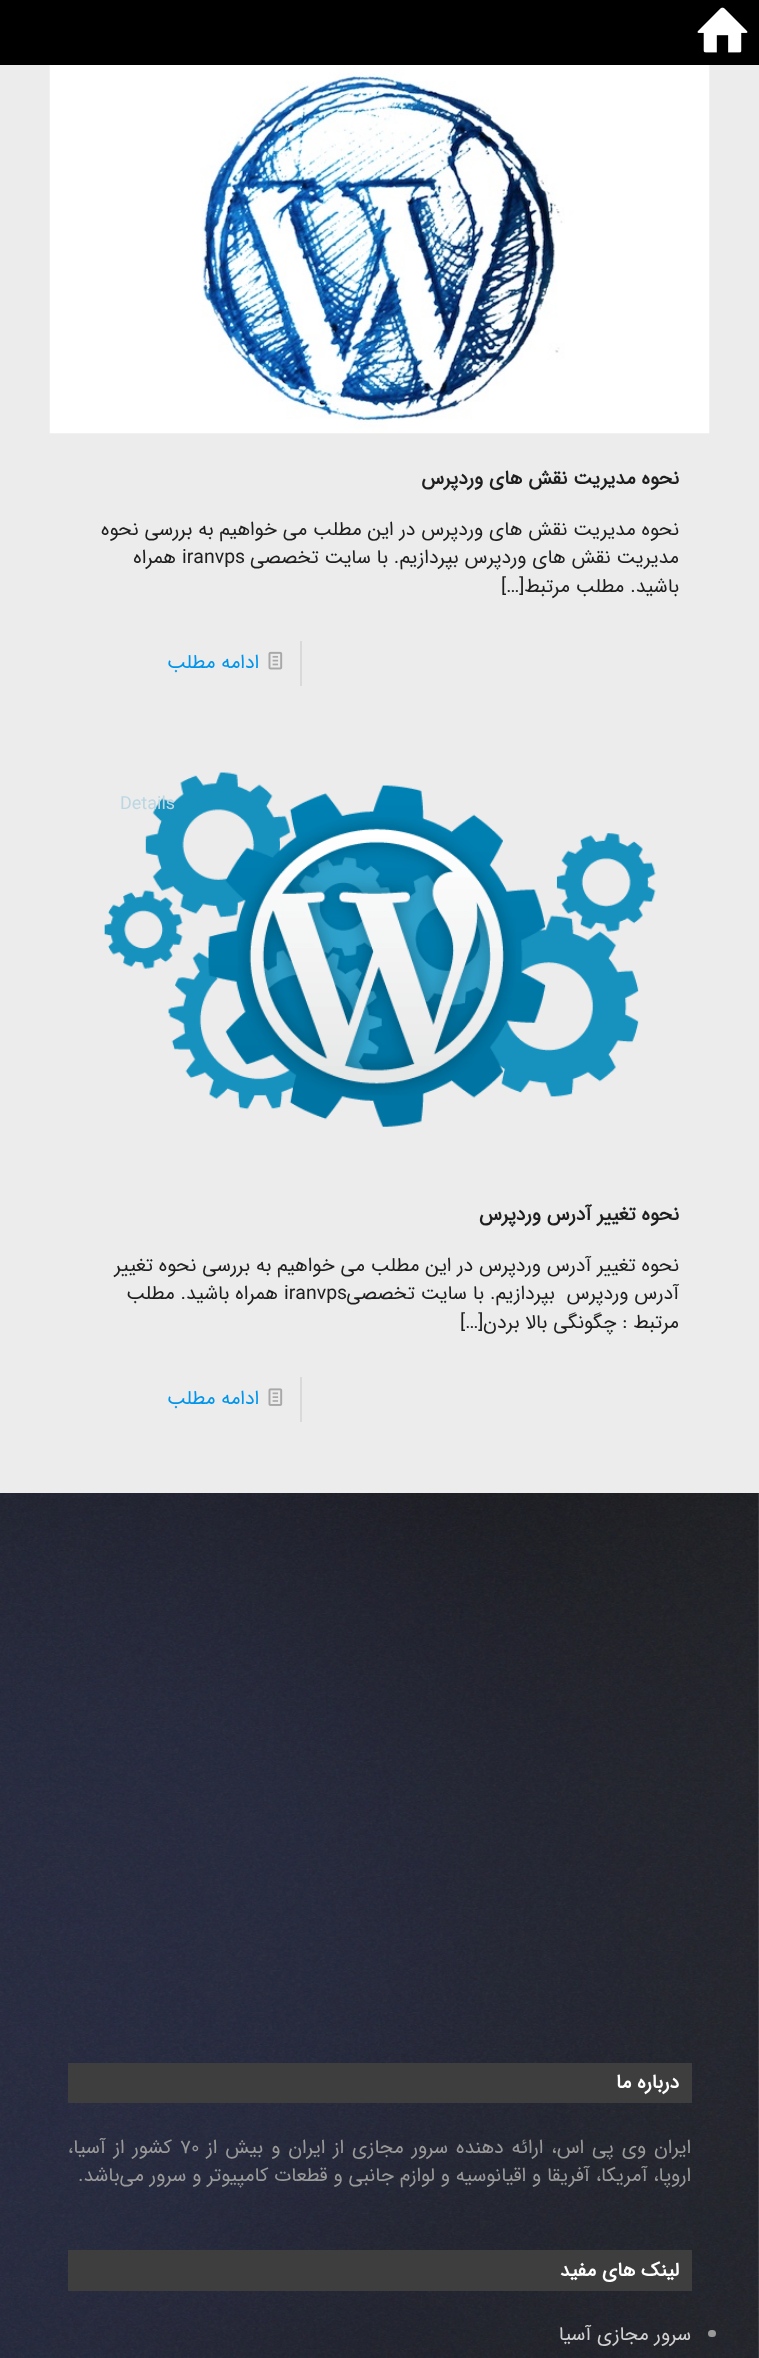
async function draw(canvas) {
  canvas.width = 759
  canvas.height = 2358
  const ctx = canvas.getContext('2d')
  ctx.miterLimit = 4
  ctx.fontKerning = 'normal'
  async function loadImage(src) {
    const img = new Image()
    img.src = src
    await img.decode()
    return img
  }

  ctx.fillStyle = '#ececec'
  ctx.fillRect(0, 0, 759, 2358)
  ctx.fillStyle = '#000'
  ctx.fillRect(0, 0, 759, 65)
  ctx.drawImage(await loadImage('image0.png'), 697, 7, 51, 46)
  ctx.drawImage(await loadImage('image1.png'), 49, 65, 661, 369)
  ctx.direction = 'rtl'
  ctx.font = 'bold 19.5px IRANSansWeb'
  ctx.fillStyle = '#1e1e1e'
  ctx.fillText('نحوه مدیریت نقش های وردپرس', 679, 484)
  ctx.font = '19.5px IRANSansWeb'
  ctx.fillText('نحوه مدیریت نقش های وردپرس در این مطلب می خواهیم به بررسی نحوه', 679, 535)
  ctx.fillText('مدیریت نقش های وردپرس بپردازیم. با سایت تخصصی', 679, 563)
  ctx.direction = 'ltr'
  ctx.fillText('iranvps', 182, 563)
  ctx.direction = 'rtl'
  ctx.fillText('همراه', 176, 563)
  ctx.fillText('باشید. مطلب مرتبط', 679, 592)
  ctx.direction = 'ltr'
  ctx.fillText('[…]', 501, 592)
  ctx.fillStyle = '#d9d9d9'
  ctx.fillRect(300, 641, 2, 45)
  ctx.drawImage(await loadImage('image2.png'), 268, 651, 15, 19)
  ctx.direction = 'rtl'
  ctx.fillStyle = '#0095eb'
  ctx.fillText('ادامه مطلب', 259, 668)
  ctx.drawImage(await loadImage('image3.png'), 104, 772, 552, 355)
  ctx.direction = 'ltr'
  ctx.font = '18px IRANSansWeb'
  ctx.fillStyle = '#bcd7e2'
  ctx.fillText('Details', 120, 809)
  ctx.direction = 'rtl'
  ctx.font = 'bold 19.5px IRANSansWeb'
  ctx.fillStyle = '#1e1e1e'
  ctx.fillText('نحوه تغییر آدرس وردپرس', 679, 1220)
  ctx.font = '19.5px IRANSansWeb'
  ctx.fillText('نحوه تغییر آدرس وردپرس در این مطلب می خواهیم به بررسی نحوه تغییر', 679, 1271)
  ctx.fillText('آدرس وردپرس  بپردازیم. با سایت تخصصی', 679, 1299)
  ctx.direction = 'ltr'
  ctx.fillText('iranvps', 284, 1299)
  ctx.direction = 'rtl'
  ctx.fillText('همراه باشید. مطلب', 278, 1299)
  ctx.fillText('مرتبط : چگونگی بالا بردن', 679, 1328)
  ctx.direction = 'ltr'
  ctx.fillText('[…]', 460, 1328)
  ctx.fillStyle = '#d9d9d9'
  ctx.fillRect(300, 1377, 2, 45)
  ctx.drawImage(await loadImage('image4.png'), 268, 1388, 15, 18)
  ctx.direction = 'rtl'
  ctx.fillStyle = '#0095eb'
  ctx.fillText('ادامه مطلب', 259, 1404)
  ctx.drawImage(await loadImage('image5.png'), 0, 1493, 759, 865)
  ctx.fillStyle = '#3e3e3e'
  ctx.fillRect(68, 2063, 624, 40)
  ctx.font = 'bold 19.5px IRANSansWeb'
  ctx.fillStyle = '#fff'
  ctx.fillText('درباره ما', 679, 2088)
  ctx.wordSpacing = '2.1px'
  ctx.font = '19.5px IRANSansWeb'
  ctx.fillStyle = '#999'
  ctx.fillText('ایران وی پی اس، ارائه دهنده سرور مجازی از ایران و بیش از', 691, 2153)
  ctx.wordSpacing = '0px'
  ctx.direction = 'ltr'
  ctx.fillText('۷۰', 180, 2153)
  ctx.wordSpacing = '2.1px'
  ctx.direction = 'rtl'
  ctx.fillText('کشور از آسیا،', 172, 2153)
  ctx.wordSpacing = '0px'
  ctx.fillText('اروپا، آمریکا، آفریقا و اقیانوسیه و لوازم جانبی و قطعات کامپیوتر و سرور می‌باشد.', 691, 2181)
  ctx.fillStyle = '#3e3e3e'
  ctx.fillRect(68, 2250, 624, 41)
  ctx.font = 'bold 19.5px IRANSansWeb'
  ctx.fillStyle = '#fff'
  ctx.fillText('لینک های مفید', 679, 2276)
  ctx.fillStyle = '#999'
  ctx.beginPath()
  ctx.roundRect(708, 2330, 8, 7, 3.5)
  ctx.fill()
  ctx.font = '19.5px IRANSansWeb'
  ctx.fillStyle = '#d1d1d1'
  ctx.fillText('سرور مجازی آسیا', 691, 2340)
}

draw(document.querySelector('canvas'))
